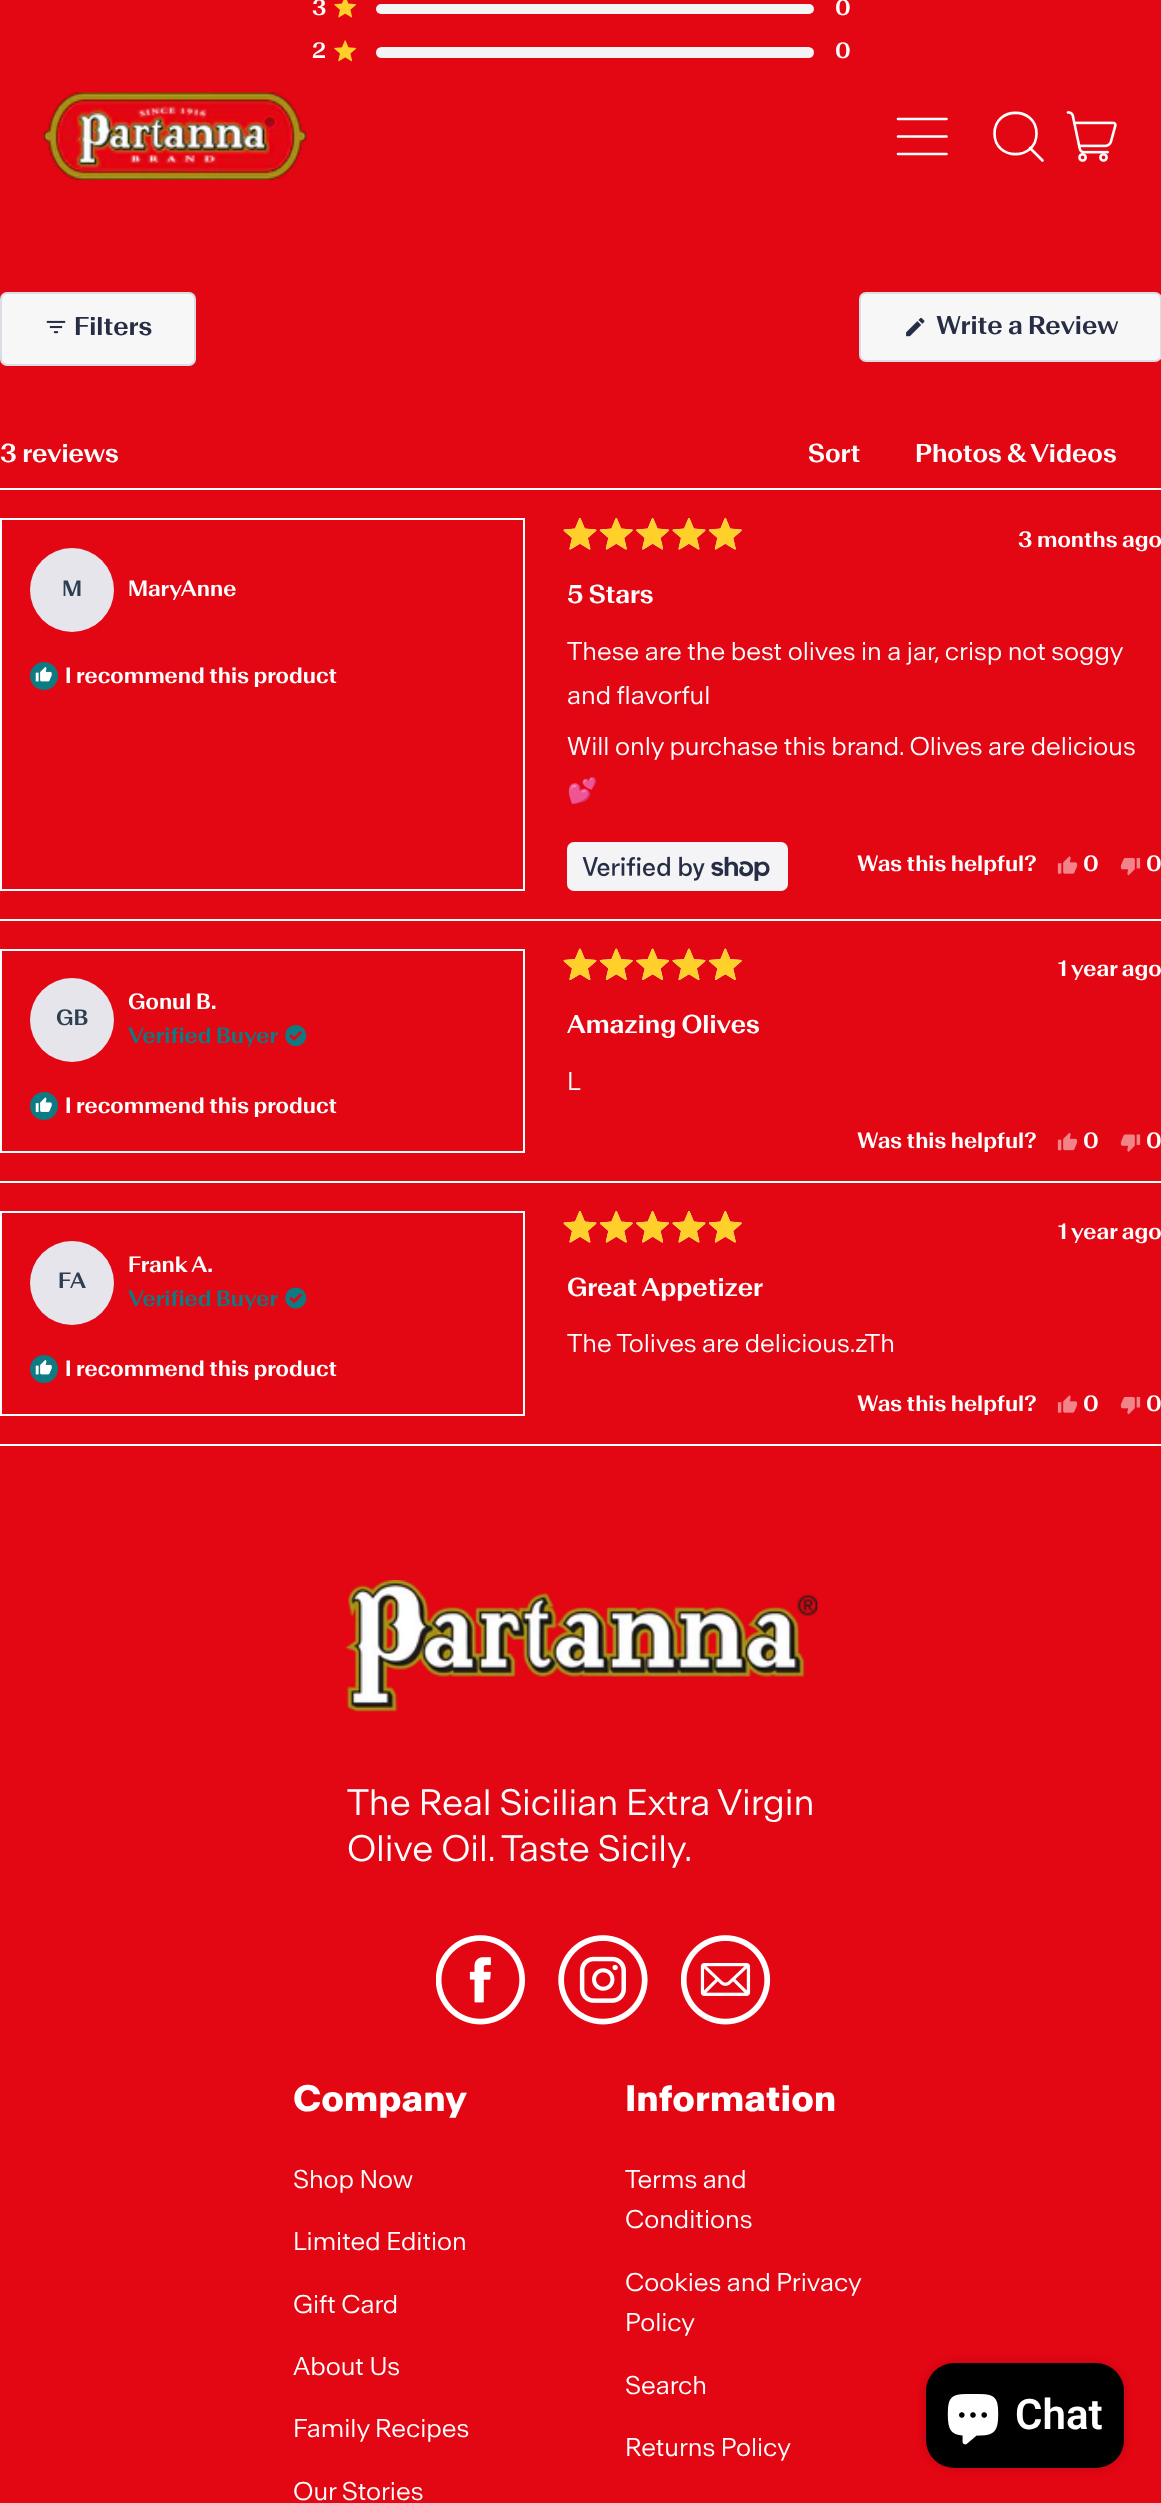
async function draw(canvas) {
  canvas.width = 1161
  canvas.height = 2503
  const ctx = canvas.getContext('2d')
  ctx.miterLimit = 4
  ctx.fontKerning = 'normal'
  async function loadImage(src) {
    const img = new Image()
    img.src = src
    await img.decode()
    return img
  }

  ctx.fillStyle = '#e30613'
  ctx.fillRect(0, 0, 1161, 2503)
  ctx.font = '600 21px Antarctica'
  ctx.fillStyle = '#fff'
  ctx.fillText('3', 312, 15)
  ctx.drawImage(await loadImage('image0.png'), 334, 0, 23, 18)
  ctx.fillStyle = '#f4f4f6'
  ctx.beginPath()
  ctx.roundRect(376, 4, 438, 10, 5)
  ctx.fill()
  ctx.fillStyle = '#fff'
  ctx.fillText('0', 835, 15)
  ctx.fillText('2', 312, 58)
  ctx.drawImage(await loadImage('image1.png'), 334, 40, 23, 22)
  ctx.fillStyle = '#f4f4f6'
  ctx.beginPath()
  ctx.roundRect(376, 47, 438, 11, 5.5)
  ctx.fill()
  ctx.fillStyle = '#fff'
  ctx.fillText('0', 835, 58)
  ctx.fillStyle = '#f7f7f8'
  ctx.beginPath()
  ctx.roundRect(1, 293, 194, 72, 6)
  ctx.fill()
  ctx.strokeStyle = '#dbdde4'
  ctx.lineWidth = 2
  ctx.stroke()
  ctx.drawImage(await loadImage('image2.png'), 46, 320, 20, 14)
  ctx.font = '600 24.5px Antarctica'
  ctx.fillStyle = '#272d45'
  ctx.fillText('Filters', 74, 335)
  ctx.fillStyle = '#f7f7f8'
  ctx.beginPath()
  ctx.roundRect(860, 293, 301, 68, 6)
  ctx.fill()
  ctx.stroke()
  ctx.drawImage(await loadImage('image3.png'), 906, 317, 19, 20)
  ctx.fillStyle = '#272d45'
  ctx.fillText('Write a Review', 936, 334)
  ctx.fillStyle = '#fff'
  ctx.fillText('3 reviews', 0, 462)
  ctx.fillText('Sort', 808, 462)
  ctx.fillText('Photos & Videos', 915, 462)
  ctx.fillRect(0, 488, 1161, 2)
  ctx.fillRect(0, 919, 1161, 2)
  ctx.strokeStyle = '#fff'
  ctx.strokeRect(1, 519, 523, 371)
  ctx.fillStyle = '#e5e5eb'
  ctx.beginPath()
  ctx.arc(72, 590, 42, 0, 2 * Math.PI)
  ctx.fill()
  ctx.font = '600 21px Antarctica'
  ctx.fillStyle = '#2c3e50'
  ctx.fillText('M', 62, 596)
  ctx.fillStyle = '#fff'
  ctx.fillText('MaryAnne', 128, 596)
  ctx.fillStyle = '#0e7a82'
  ctx.beginPath()
  ctx.arc(44, 676, 14, 0, 2 * Math.PI)
  ctx.fill()
  ctx.drawImage(await loadImage('image4.png'), 35, 666, 17, 16)
  ctx.fillStyle = '#fff'
  ctx.fillText('I recommend this product', 65, 683)
  ctx.drawImage(await loadImage('image5.png'), 563, 518, 179, 32)
  ctx.drawImage(await loadImage('image6.png'), 564, 518, 178, 32)
  ctx.fillText('3 months ago', 1018, 547)
  ctx.font = '600 24.5px Antarctica'
  ctx.fillText('5 Stars', 567, 603)
  ctx.font = '300 24.5px Antarctica'
  ctx.fillText('These are the best olives in a jar, crisp not soggy', 567, 660)
  ctx.fillText('and flavorful', 567, 704)
  ctx.fillText('Will only purchase this brand. Olives are delicious', 567, 755)
  ctx.font = '24.5px Noto Color Emoji'
  ctx.fillText('💕', 567, 799)
  ctx.fillStyle = '#f4f4f6'
  ctx.beginPath()
  ctx.roundRect(567, 842, 221, 49, 7)
  ctx.fill()
  ctx.drawImage(await loadImage('image7.png'), 582, 856, 188, 25)
  ctx.font = '600 21px Antarctica'
  ctx.fillStyle = '#fff'
  ctx.fillText('Was this helpful?', 857, 871)
  ctx.drawImage(await loadImage('image8.png'), 1057, 856, 21, 18)
  ctx.fillText('0', 1083, 871)
  ctx.drawImage(await loadImage('image9.png'), 1120, 857, 21, 19)
  ctx.fillText('0', 1146, 871)
  ctx.fillRect(0, 1181, 1161, 2)
  ctx.strokeRect(1, 950, 523, 202)
  ctx.fillStyle = '#e5e5eb'
  ctx.beginPath()
  ctx.arc(72, 1020, 42, 0, 2 * Math.PI)
  ctx.fill()
  ctx.fillStyle = '#2c3e50'
  ctx.fillText('GB', 56, 1025)
  ctx.fillStyle = '#fff'
  ctx.fillText('Gonul B.', 128, 1009)
  ctx.fillStyle = '#0e7a82'
  ctx.fillText('Verified Buyer', 128, 1043)
  ctx.drawImage(await loadImage('image10.png'), 285, 1025, 22, 22)
  ctx.beginPath()
  ctx.arc(44, 1106, 14, 0, 2 * Math.PI)
  ctx.fill()
  ctx.drawImage(await loadImage('image11.png'), 35, 1097, 17, 15)
  ctx.fillStyle = '#fff'
  ctx.fillText('I recommend this product', 65, 1113)
  ctx.drawImage(await loadImage('image12.png'), 563, 948, 179, 32)
  ctx.drawImage(await loadImage('image13.png'), 564, 949, 178, 31)
  ctx.fillText('1 year ago', 1058, 976)
  ctx.font = '600 24.5px Antarctica'
  ctx.fillText('Amazing Olives', 567, 1033)
  ctx.font = '300 24.5px Antarctica'
  ctx.fillText('L', 567, 1090)
  ctx.font = '600 21px Antarctica'
  ctx.fillText('Was this helpful?', 857, 1148)
  ctx.drawImage(await loadImage('image14.png'), 1057, 1132, 21, 19)
  ctx.fillText('0', 1083, 1148)
  ctx.drawImage(await loadImage('image15.png'), 1120, 1134, 21, 18)
  ctx.fillText('0', 1146, 1148)
  ctx.fillRect(0, 1444, 1161, 2)
  ctx.strokeRect(1, 1212, 523, 203)
  ctx.fillStyle = '#e5e5eb'
  ctx.beginPath()
  ctx.arc(72, 1283, 42, 0, 2 * Math.PI)
  ctx.fill()
  ctx.fillStyle = '#2c3e50'
  ctx.fillText('FA', 58, 1288)
  ctx.fillStyle = '#fff'
  ctx.fillText('Frank A.', 128, 1272)
  ctx.fillStyle = '#0e7a82'
  ctx.fillText('Verified Buyer', 128, 1306)
  ctx.drawImage(await loadImage('image16.png'), 285, 1287, 22, 22)
  ctx.beginPath()
  ctx.arc(44, 1369, 14, 0, 2 * Math.PI)
  ctx.fill()
  ctx.drawImage(await loadImage('image4.png'), 35, 1359, 17, 16)
  ctx.fillStyle = '#fff'
  ctx.fillText('I recommend this product', 65, 1376)
  ctx.drawImage(await loadImage('image5.png'), 563, 1211, 179, 32)
  ctx.drawImage(await loadImage('image6.png'), 564, 1211, 178, 32)
  ctx.fillText('1 year ago', 1058, 1239)
  ctx.font = '600 24.5px Antarctica'
  ctx.fillText('Great Appetizer', 567, 1296)
  ctx.font = '300 24.5px Antarctica'
  ctx.fillText('The Tolives are delicious.zTh', 567, 1352)
  ctx.font = '600 21px Antarctica'
  ctx.fillText('Was this helpful?', 857, 1411)
  ctx.drawImage(await loadImage('image8.png'), 1057, 1395, 21, 18)
  ctx.fillText('0', 1083, 1411)
  ctx.drawImage(await loadImage('image9.png'), 1120, 1396, 21, 19)
  ctx.fillText('0', 1146, 1411)
  ctx.drawImage(await loadImage('image17.png'), 43, 92, 264, 88)
  ctx.beginPath()
  ctx.moveTo(946.5, 154)
  ctx.lineTo(898, 154)
  ctx.moveTo(946.5, 136.5)
  ctx.lineTo(898, 136.5)
  ctx.moveTo(946.5, 119)
  ctx.lineTo(898, 119)
  ctx.lineWidth = 2.6
  ctx.lineCap = 'round'
  ctx.lineJoin = 'round'
  ctx.stroke()
  ctx.beginPath()
  ctx.moveTo(994.5, 133.5)
  ctx.bezierCurveTo(994.5, 161, 1036.5, 161, 1036.5, 133.5)
  ctx.bezierCurveTo(1036.5, 106, 994.5, 106, 994.5, 133.5)
  ctx.closePath()
  ctx.moveTo(1042.5, 160.5)
  ctx.lineTo(1030, 148)
  ctx.stroke()
  ctx.drawImage(await loadImage('image18.png'), 1066, 111, 51, 51)
  ctx.drawImage(await loadImage('image19.png'), 345, 1580, 473, 132)
  ctx.font = '300 35px Antarctica'
  ctx.fillText('The Real Sicilian Extra Virgin', 347, 1815)
  ctx.fillText('Olive Oil. Taste Sicily.', 347, 1861)
  ctx.drawImage(await loadImage('image20.png'), 436, 1935, 89, 90)
  ctx.drawImage(await loadImage('image21.png'), 558, 1935, 90, 90)
  ctx.drawImage(await loadImage('image22.png'), 681, 1935, 90, 90)
  ctx.font = 'bold 35px Antarctica'
  ctx.fillText('Company', 293, 2111)
  ctx.font = '300 24.5px Antarctica'
  ctx.fillText('Shop Now', 293, 2188)
  ctx.fillText('Limited Edition', 293, 2250)
  ctx.fillText('Gift Card', 293, 2313)
  ctx.fillText('About Us', 293, 2375)
  ctx.fillText('Family Recipes', 293, 2437)
  ctx.fillText('Our Stories', 293, 2500)
  ctx.font = 'bold 35px Antarctica'
  ctx.fillText('Information', 625, 2111)
  ctx.font = '300 24.5px Antarctica'
  ctx.fillText('Terms and', 625, 2188)
  ctx.fillText('Conditions', 625, 2228)
  ctx.fillText('Cookies and Privacy', 625, 2291)
  ctx.fillText('Policy', 625, 2331)
  ctx.fillText('Search', 625, 2394)
  ctx.fillText('Returns Policy', 625, 2456)
  ctx.fillStyle = '#00000026'
  ctx.filter = 'blur(4.5px)'
  ctx.beginPath()
  ctx.roundRect(926, 2363, 198, 105, 28)
  ctx.fill()
  ctx.filter = 'none'
  ctx.fillStyle = '#000'
  ctx.beginPath()
  ctx.roundRect(926, 2363, 198, 105, 28)
  ctx.fill()
  ctx.drawImage(await loadImage('image23.png'), 947, 2394, 52, 51)
  ctx.font = '600 42px Roboto'
  ctx.fillStyle = '#fff'
  ctx.fillText('Chat', 1015, 2429)
}

draw(document.querySelector('canvas'))
